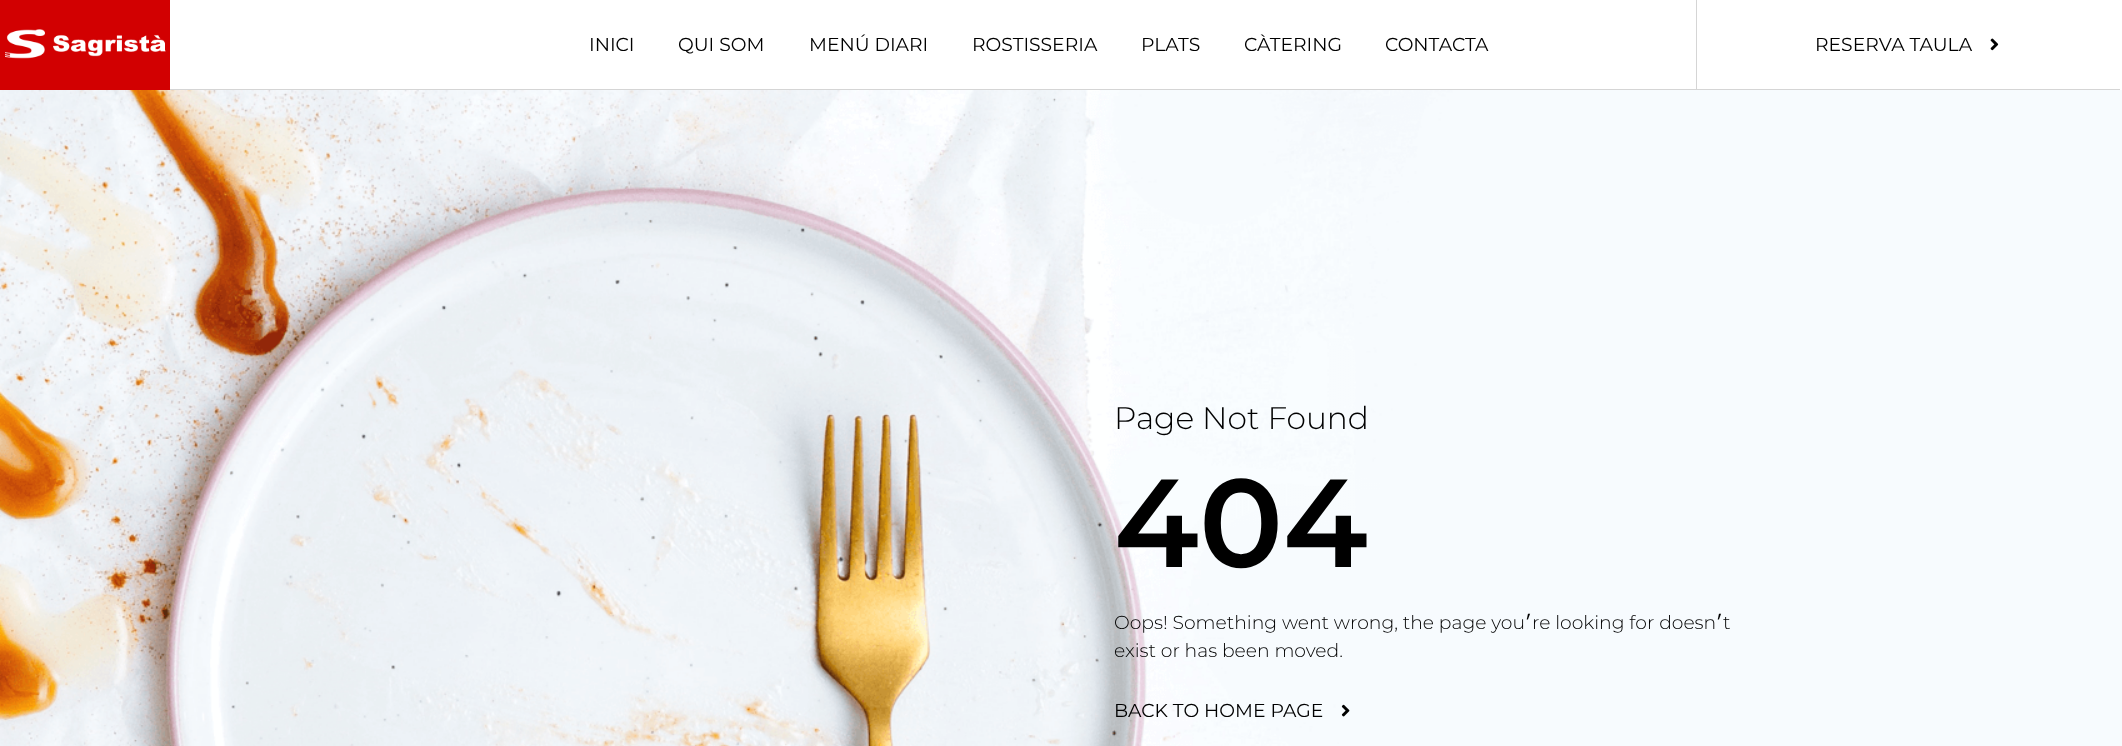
async function draw(canvas) {
  canvas.width = 2122
  canvas.height = 746
  const ctx = canvas.getContext('2d')
  ctx.miterLimit = 4
  ctx.fontKerning = 'normal'
  async function loadImage(src) {
    const img = new Image()
    img.src = src
    await img.decode()
    return img
  }

  ctx.fillStyle = '#fff'
  ctx.fillRect(0, 0, 2122, 746)
  ctx.fillStyle = '#d20001'
  ctx.fillRect(0, 0, 170, 90)
  ctx.drawImage(await loadImage('image0.png'), 5, 29, 161, 30)
  ctx.fillStyle = '#d5d5d5'
  ctx.fillRect(170, 89, 1950, 1)
  ctx.font = '18.75px Montserrat'
  ctx.fillStyle = '#000'
  ctx.fillText('INICI', 589, 51)
  ctx.fillText('QUI SOM', 678, 51)
  ctx.fillText('MENÚ DIARI', 809, 51)
  ctx.fillText('ROSTISSERIA', 972, 51)
  ctx.fillText('PLATS', 1141, 51)
  ctx.fillText('CÀTERING', 1244, 51)
  ctx.fillText('CONTACTA', 1385, 51)
  ctx.fillStyle = '#d5d5d5'
  ctx.fillRect(1696, 0, 1, 90)
  ctx.fillStyle = '#000'
  ctx.fillText('RESERVA TAULA', 1815, 51)
  ctx.drawImage(await loadImage('image1.png'), 1990, 38, 9, 13)
  ctx.drawImage(await loadImage('image2.png'), 0, 90, 2122, 656)
  ctx.font = '300 31.25px Montserrat'
  ctx.fillText('Page Not Found', 1114, 429)
  ctx.font = '600 125px Montserrat'
  ctx.fillText('404', 1114, 567)
  ctx.font = '300 18.75px Montserrat'
  ctx.fillText('Oops! Something went wrong, the page you', 1114, 629)
  ctx.direction = 'rtl'
  ctx.font = '18.75px Liberation Sans'
  ctx.fillText('׳', 1532, 629)
  ctx.direction = 'ltr'
  ctx.font = '300 18.75px Montserrat'
  ctx.fillText('re looking for doesn', 1532, 629)
  ctx.direction = 'rtl'
  ctx.font = '18.75px Liberation Sans'
  ctx.fillText('׳', 1723, 629)
  ctx.direction = 'ltr'
  ctx.font = '300 18.75px Montserrat'
  ctx.fillText('t', 1723, 629)
  ctx.fillText('exist or has been moved.', 1114, 657)
  ctx.font = '18.75px Montserrat'
  ctx.fillText('BACK TO HOME PAGE', 1114, 717)
  ctx.drawImage(await loadImage('image3.png'), 1341, 704, 9, 13)
}

draw(document.querySelector('canvas'))
